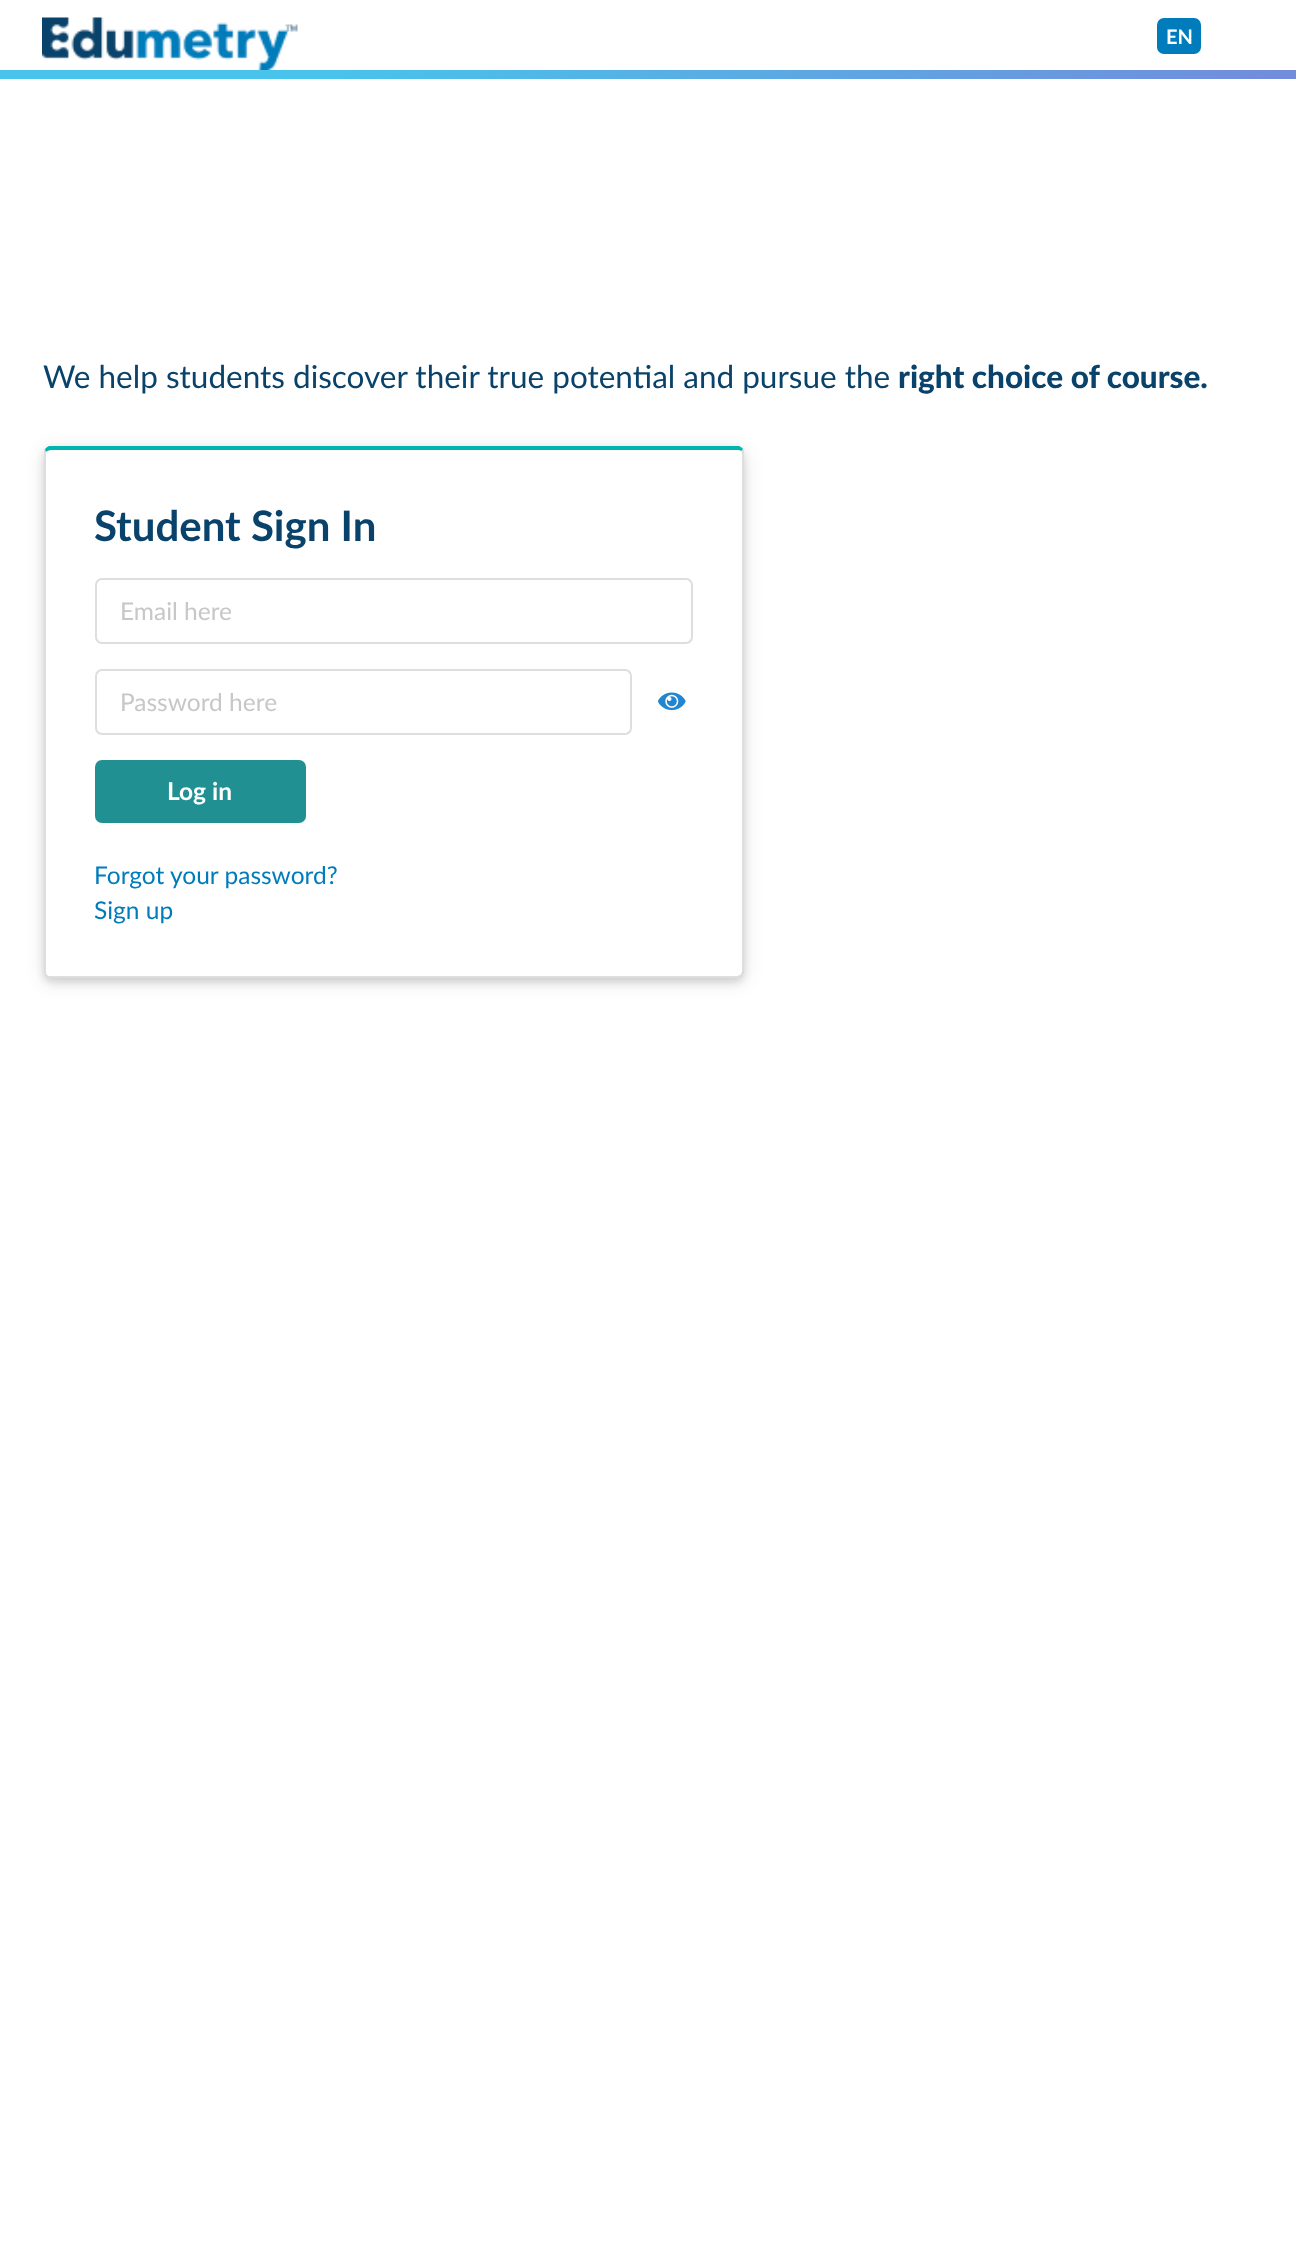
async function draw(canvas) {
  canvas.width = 1296
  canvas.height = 2267
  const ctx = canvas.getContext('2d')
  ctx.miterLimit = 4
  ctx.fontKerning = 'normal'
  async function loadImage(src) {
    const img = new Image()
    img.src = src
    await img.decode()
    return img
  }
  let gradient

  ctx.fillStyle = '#fff'
  ctx.fillRect(0, 0, 1296, 2267)
  ctx.drawImage(await loadImage('image0.png'), 42, 17, 256, 53)
  ctx.fillStyle = '#007bbb'
  ctx.beginPath()
  ctx.roundRect(1157, 18, 44, 36, 7)
  ctx.fill()
  ctx.font = 'bold 20px Lato'
  ctx.fillStyle = '#fff'
  ctx.fillText('EN', 1166, 44)
  gradient = ctx.createLinearGradient(975, 401, 322, -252)
  gradient.addColorStop(0, '#738bdc')
  gradient.addColorStop(0.74, '#48c3eb')
  ctx.fillStyle = gradient
  ctx.fillRect(0, 70, 1296, 9)
  ctx.font = '31.5px Lato'
  ctx.fillStyle = '#09426a'
  ctx.fillText('We help students discover their true potential and pursue the', 43, 388)
  ctx.font = '900 31.5px Lato'
  ctx.fillText('right choice of course.', 898, 388)
  ctx.fillStyle = '#22242626'
  ctx.filter = 'blur(9px)'
  ctx.beginPath()
  ctx.roundRect(44, 450, 700, 532, 7)
  ctx.fill()
  ctx.filter = 'none'
  ctx.fillStyle = '#2224261f'
  ctx.filter = 'blur(3.5px)'
  ctx.beginPath()
  ctx.roundRect(44, 450, 700, 532, 7)
  ctx.fill()
  ctx.filter = 'none'
  ctx.fillStyle = '#fff'
  ctx.beginPath()
  ctx.roundRect(44, 446, 700, 532, 7)
  ctx.fill()
  ctx.fillStyle = '#00b5ad'
  ctx.beginPath()
  ctx.moveTo(51, 450)
  ctx.bezierCurveTo(49, 450, 47, 451, 46, 452)
  ctx.lineTo(45, 449)
  ctx.bezierCurveTo(46, 448, 47, 447, 49, 446)
  ctx.lineTo(739, 446)
  ctx.bezierCurveTo(740, 447, 742, 447, 743, 449)
  ctx.lineTo(741, 451)
  ctx.bezierCurveTo(740, 450, 739, 450, 737, 450)
  ctx.closePath()
  ctx.fill()
  ctx.fillStyle = '#22242626'
  ctx.beginPath()
  ctx.moveTo(744, 973)
  ctx.lineTo(742, 976)
  ctx.lineTo(740, 975)
  ctx.bezierCurveTo(741, 974, 742, 972, 742, 971)
  ctx.lineTo(742, 453)
  ctx.lineTo(741, 451)
  ctx.lineTo(743, 449)
  ctx.lineTo(744, 451)
  ctx.closePath()
  ctx.fill()
  ctx.beginPath()
  ctx.moveTo(742, 976)
  ctx.bezierCurveTo(741, 977, 739, 978, 737, 978)
  ctx.lineTo(51, 978)
  ctx.bezierCurveTo(49, 978, 47, 977, 46, 976)
  ctx.lineTo(47, 975)
  ctx.bezierCurveTo(48, 976, 50, 976, 51, 976)
  ctx.lineTo(737, 976)
  ctx.lineTo(740, 975)
  ctx.closePath()
  ctx.fill()
  ctx.beginPath()
  ctx.moveTo(46, 976)
  ctx.bezierCurveTo(45, 975, 44, 973, 44, 971)
  ctx.lineTo(44, 453)
  ctx.bezierCurveTo(44, 452, 44, 450, 45, 449)
  ctx.lineTo(46, 452)
  ctx.lineTo(46, 453)
  ctx.lineTo(46, 971)
  ctx.bezierCurveTo(46, 972, 46, 974, 47, 975)
  ctx.closePath()
  ctx.fill()
  ctx.font = 'bold 42px Lato'
  ctx.fillStyle = '#09426a'
  ctx.fillText('Student Sign In', 94, 541)
  ctx.beginPath()
  ctx.roundRect(96, 579, 596, 64, 6)
  ctx.strokeStyle = '#dedede'
  ctx.lineWidth = 2
  ctx.stroke()
  ctx.font = '24.5px Lato'
  ctx.fillStyle = '#c7c7c7'
  ctx.fillText('Email here', 120, 620)
  ctx.beginPath()
  ctx.roundRect(96, 670, 535, 64, 6)
  ctx.stroke()
  ctx.fillText('Password here', 120, 711)
  ctx.drawImage(await loadImage('image1.png'), 658, 692, 28, 19)
  ctx.fillStyle = '#219092'
  ctx.beginPath()
  ctx.roundRect(95, 760, 211, 63, 7)
  ctx.fill()
  ctx.font = 'bold 24.5px Lato'
  ctx.fillStyle = '#fff'
  ctx.fillText('Log in', 167, 800)
  ctx.font = '24.5px Lato'
  ctx.fillStyle = '#007bbb'
  ctx.fillText('Forgot your password?', 94, 884)
  ctx.fillText('Sign up', 94, 919)
}

draw(document.querySelector('canvas'))
